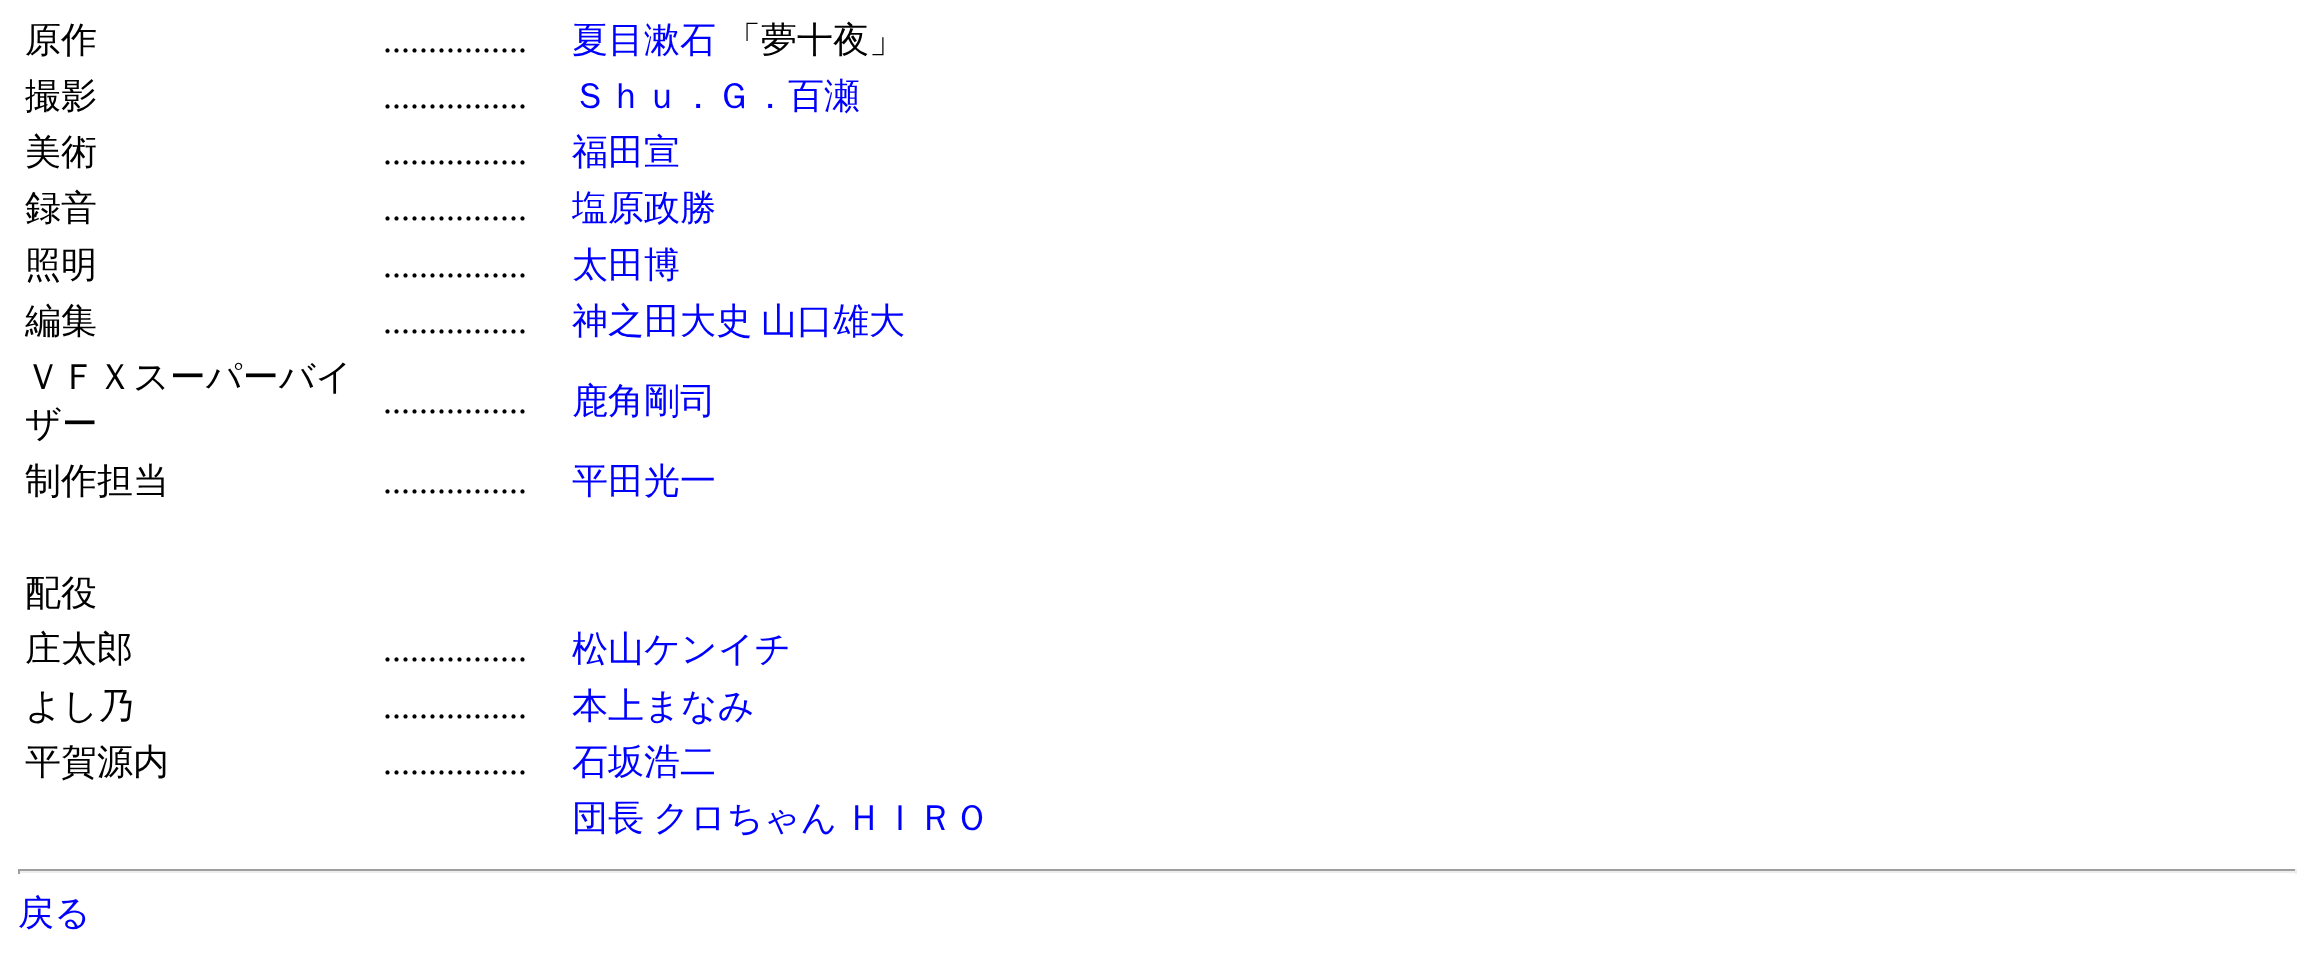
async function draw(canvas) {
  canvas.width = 2315
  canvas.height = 956
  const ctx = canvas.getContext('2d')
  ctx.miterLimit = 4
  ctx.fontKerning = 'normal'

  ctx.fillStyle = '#fff'
  ctx.fillRect(0, 0, 2315, 956)
  ctx.font = '500 36px WenQuanYi Zen Hei'
  ctx.fillStyle = '#000'
  ctx.fillText('原作', 25, 52)
  ctx.font = '36px Liberation Serif'
  ctx.fillText('................', 383, 52)
  ctx.font = '500 36px WenQuanYi Zen Hei'
  ctx.fillStyle = '#00f'
  ctx.fillText('夏目漱石', 572, 52)
  ctx.fillStyle = '#000'
  ctx.fillText('「夢十夜」', 725, 52)
  ctx.fillText('撮影', 25, 108)
  ctx.font = '36px Liberation Serif'
  ctx.fillText('................', 383, 108)
  ctx.font = '500 36px WenQuanYi Zen Hei'
  ctx.fillStyle = '#00f'
  ctx.fillText('Ｓｈｕ．Ｇ．百瀬', 572, 108)
  ctx.fillStyle = '#000'
  ctx.fillText('美術', 25, 164)
  ctx.font = '36px Liberation Serif'
  ctx.fillText('................', 383, 164)
  ctx.font = '500 36px WenQuanYi Zen Hei'
  ctx.fillStyle = '#00f'
  ctx.fillText('福田宣', 572, 164)
  ctx.fillStyle = '#000'
  ctx.fillText('録音', 25, 220)
  ctx.font = '36px Liberation Serif'
  ctx.fillText('................', 383, 220)
  ctx.font = '500 36px WenQuanYi Zen Hei'
  ctx.fillStyle = '#00f'
  ctx.fillText('塩原政勝', 572, 220)
  ctx.fillStyle = '#000'
  ctx.fillText('照明', 25, 277)
  ctx.font = '36px Liberation Serif'
  ctx.fillText('................', 383, 277)
  ctx.font = '500 36px WenQuanYi Zen Hei'
  ctx.fillStyle = '#00f'
  ctx.fillText('太田博', 572, 277)
  ctx.fillStyle = '#000'
  ctx.fillText('編集', 25, 333)
  ctx.font = '36px Liberation Serif'
  ctx.fillText('................', 383, 333)
  ctx.font = '500 36px WenQuanYi Zen Hei'
  ctx.fillStyle = '#00f'
  ctx.fillText('神之田大史', 572, 333)
  ctx.fillText('山口雄大', 761, 333)
  ctx.fillStyle = '#000'
  ctx.fillText('ＶＦＸスーパーバイ', 25, 389)
  ctx.fillText('ザー', 25, 436)
  ctx.font = '36px Liberation Serif'
  ctx.fillText('................', 383, 413)
  ctx.font = '500 36px WenQuanYi Zen Hei'
  ctx.fillStyle = '#00f'
  ctx.fillText('鹿角剛司', 572, 413)
  ctx.fillStyle = '#000'
  ctx.fillText('制作担当', 25, 493)
  ctx.font = '36px Liberation Serif'
  ctx.fillText('................', 383, 493)
  ctx.font = '500 36px WenQuanYi Zen Hei'
  ctx.fillStyle = '#00f'
  ctx.fillText('平田光一', 572, 493)
  ctx.fillStyle = '#000'
  ctx.fillText('配役', 25, 605)
  ctx.fillText('庄太郎', 25, 661)
  ctx.font = '36px Liberation Serif'
  ctx.fillText('................', 383, 661)
  ctx.font = '500 36px WenQuanYi Zen Hei'
  ctx.fillStyle = '#00f'
  ctx.fillText('松山ケンイチ', 572, 661)
  ctx.fillStyle = '#000'
  ctx.fillText('よし乃', 25, 718)
  ctx.font = '36px Liberation Serif'
  ctx.fillText('................', 383, 718)
  ctx.font = '500 36px WenQuanYi Zen Hei'
  ctx.fillStyle = '#00f'
  ctx.fillText('本上まなみ', 572, 718)
  ctx.fillStyle = '#000'
  ctx.fillText('平賀源内', 25, 774)
  ctx.font = '36px Liberation Serif'
  ctx.fillText('................', 383, 774)
  ctx.font = '500 36px WenQuanYi Zen Hei'
  ctx.fillStyle = '#00f'
  ctx.fillText('石坂浩二', 572, 774)
  ctx.fillText('団長', 572, 830)
  ctx.fillText('クロちゃん', 653, 830)
  ctx.fillText('ＨＩＲＯ', 846, 830)
  ctx.fillStyle = '#9f9f9f'
  ctx.fillRect(18, 869, 2279, 2)
  ctx.fillStyle = '#eee'
  ctx.fillRect(2295, 869, 2, 5)
  ctx.fillRect(18, 871, 2279, 2)
  ctx.fillStyle = '#9f9f9f'
  ctx.fillRect(18, 869, 2, 5)
  ctx.fillStyle = '#00f'
  ctx.fillText('戻る', 18, 925)
}

draw(document.querySelector('canvas'))
